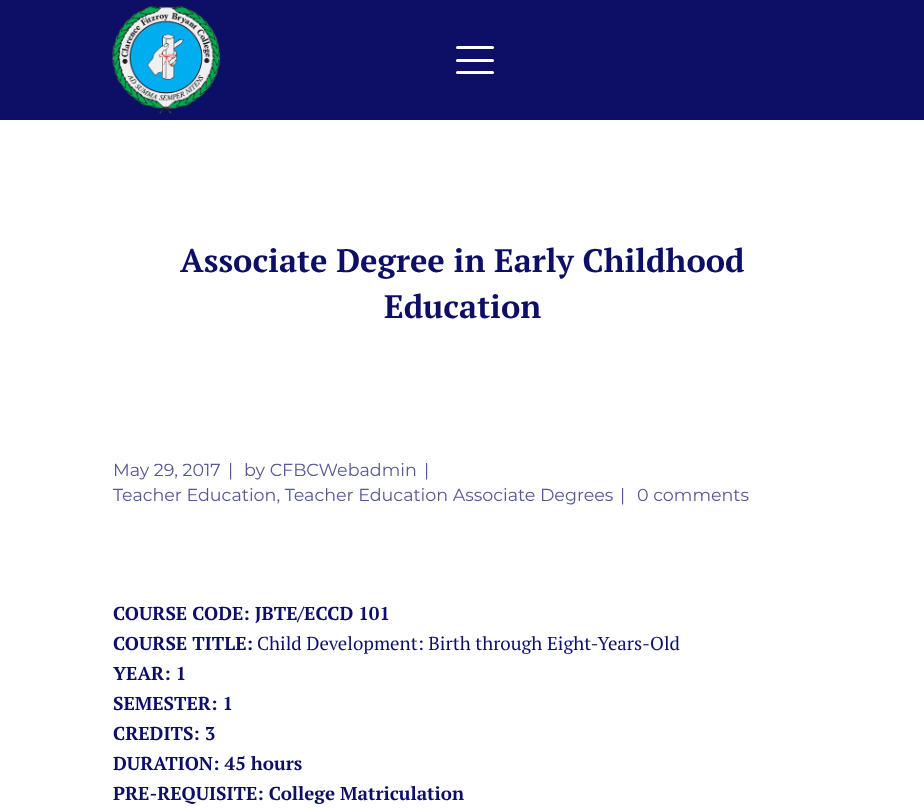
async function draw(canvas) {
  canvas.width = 924
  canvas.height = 810
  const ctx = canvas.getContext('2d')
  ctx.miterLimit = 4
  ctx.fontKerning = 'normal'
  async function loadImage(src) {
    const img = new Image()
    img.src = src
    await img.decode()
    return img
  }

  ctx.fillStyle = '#fff'
  ctx.fillRect(0, 0, 924, 810)
  ctx.fillStyle = '#0d0f67'
  ctx.fillRect(0, 0, 924, 120)
  ctx.drawImage(await loadImage('image0.png'), 112, 6, 108, 108)
  ctx.fillStyle = '#fff'
  ctx.beginPath()
  ctx.roundRect(456, 59, 38, 3, 1.5)
  ctx.fill()
  ctx.beginPath()
  ctx.roundRect(456, 46, 38, 3, 1.5)
  ctx.fill()
  ctx.beginPath()
  ctx.roundRect(456, 71, 38, 3, 1.5)
  ctx.fill()
  ctx.font = 'bold 32.5px PT Serif'
  ctx.fillStyle = '#0d0f67'
  ctx.fillText('Associate Degree in Early Childhood', 180, 272)
  ctx.fillText('Education', 384, 318)
  ctx.font = '100 17.5px Montserrat'
  ctx.fillStyle = '#565795'
  ctx.fillText('May 29, 2017', 113, 476)
  ctx.fillText('|', 228, 476)
  ctx.fillText('by CFBCWebadmin', 244, 476)
  ctx.fillText('|', 424, 476)
  ctx.fillText('Teacher Education, Teacher Education Associate Degrees', 113, 501)
  ctx.fillText('|', 620, 501)
  ctx.fillText('0 comments', 637, 501)
  ctx.font = 'bold 18.75px PT Serif'
  ctx.fillStyle = '#0d0f67'
  ctx.fillText('COURSE CODE: JBTE/ECCD 101', 113, 620)
  ctx.fillText('COURSE TITLE:', 113, 650)
  ctx.font = '18.75px PT Serif'
  ctx.fillText('Child Development: Birth through Eight-Years-Old', 257, 650)
  ctx.font = 'bold 18.75px PT Serif'
  ctx.fillText('YEAR: 1', 113, 680)
  ctx.fillText('SEMESTER: 1', 113, 710)
  ctx.fillText('CREDITS: 3', 113, 740)
  ctx.fillText('DURATION: 45 hours', 113, 770)
  ctx.fillText('PRE-REQUISITE: College Matriculation', 113, 800)
}

draw(document.querySelector('canvas'))
